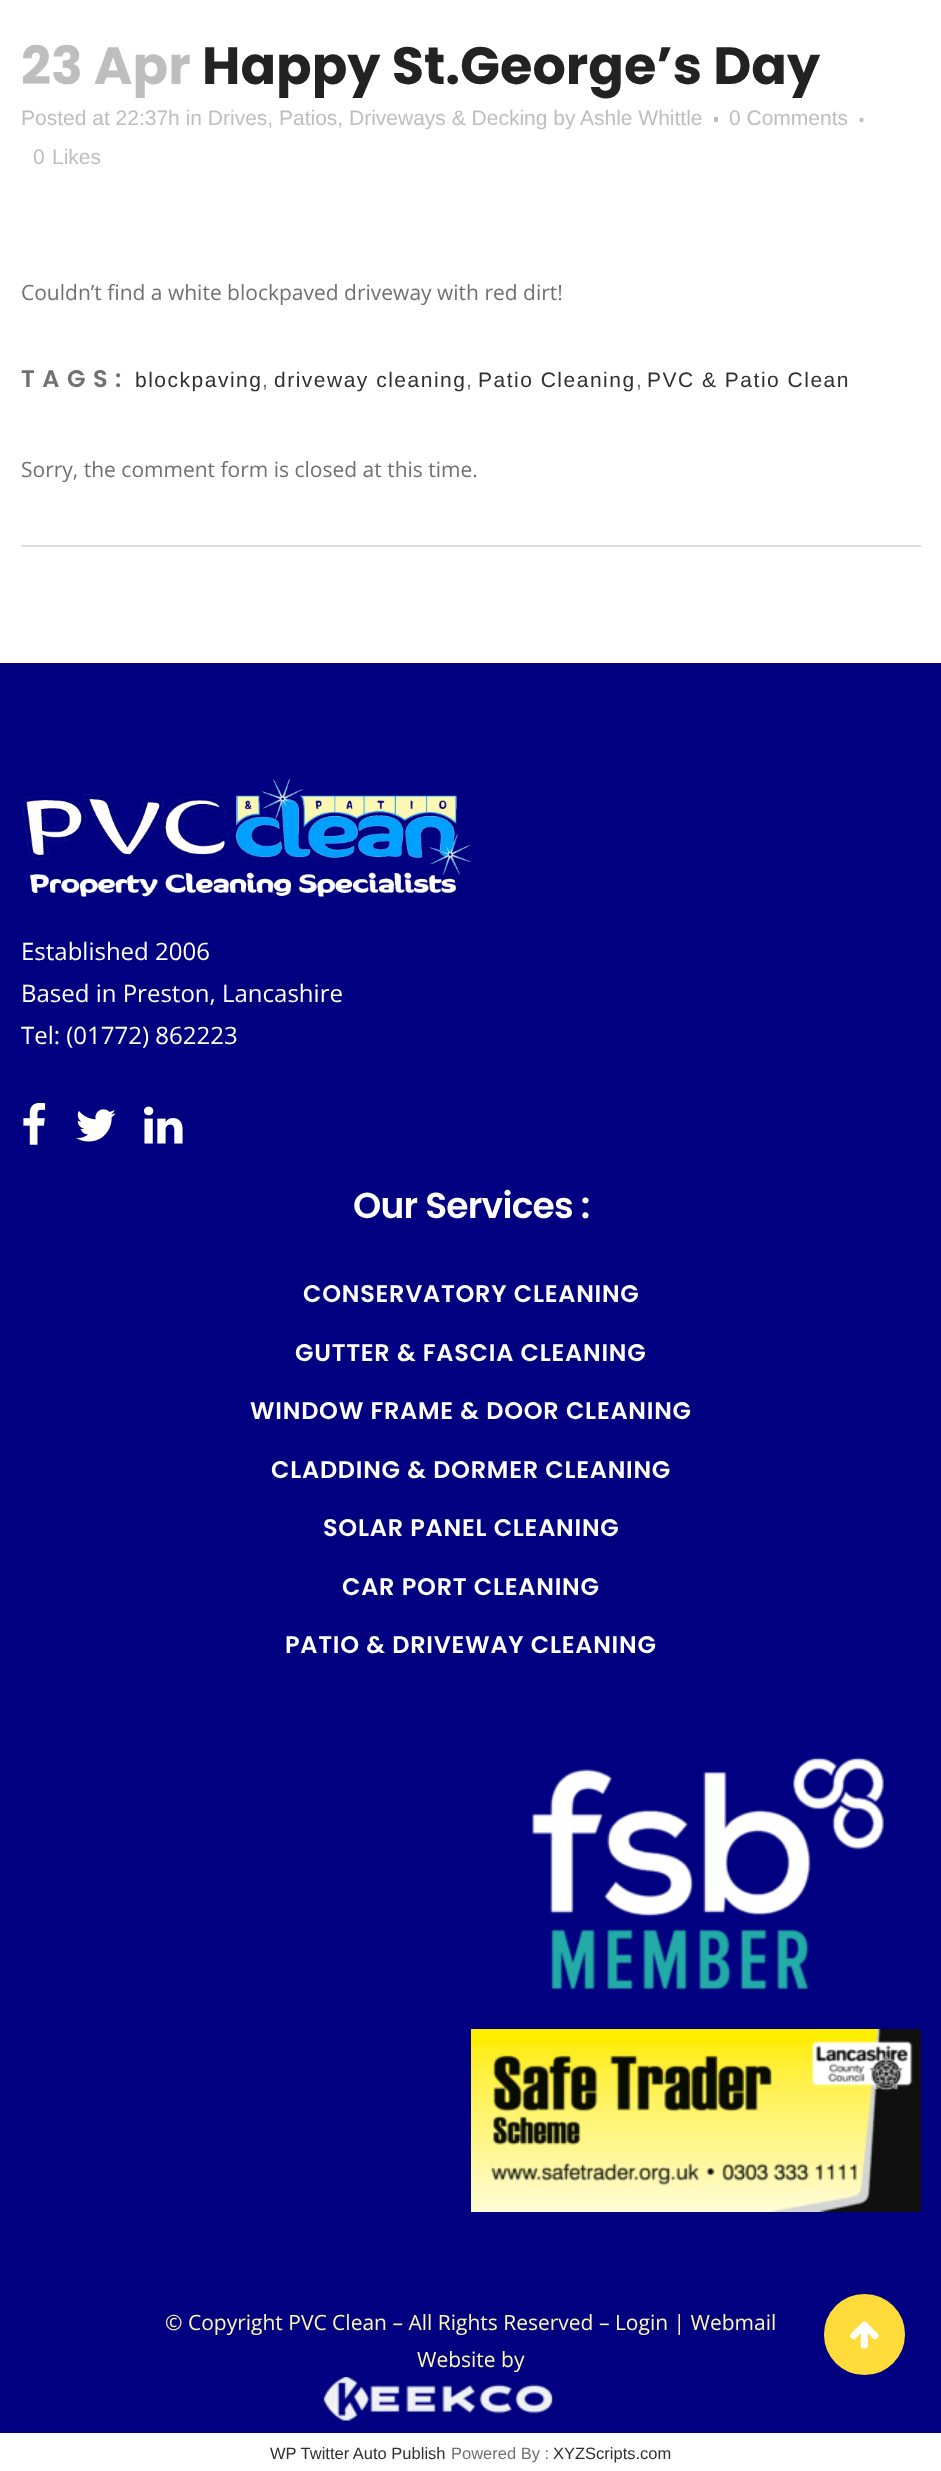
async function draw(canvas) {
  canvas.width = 941
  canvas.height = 2471
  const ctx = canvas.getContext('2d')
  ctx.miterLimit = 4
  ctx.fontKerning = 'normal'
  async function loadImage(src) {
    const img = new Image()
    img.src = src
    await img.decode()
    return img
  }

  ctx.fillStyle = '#fff'
  ctx.fillRect(0, 0, 941, 2471)
  ctx.font = 'bold 52.5px Poppins'
  ctx.fillStyle = '#bebebe'
  ctx.fillText('23 Apr', 21, 84)
  ctx.fillStyle = '#222'
  ctx.fillText('Happy St.George’s Day', 202, 84)
  ctx.font = '21px Liberation Sans'
  ctx.fillStyle = '#bebebe'
  ctx.fillText('Posted at 22:37h in Drives, Patios, Driveways & Decking by', 21, 125)
  ctx.fillText('Ashle Whittle', 580, 125)
  ctx.fillRect(714, 117, 4, 5)
  ctx.fillText('0 Comments', 729, 125)
  ctx.drawImage(await loadImage('image0.png'), 859, 117, 5, 5)
  ctx.fillText('0', 33, 164)
  ctx.fillText('Likes', 52, 164)
  ctx.font = '21px Open Sans'
  ctx.fillStyle = '#717171'
  ctx.fillText('Couldn’t find a white blockpaved driveway with red dirt!', 21, 300)
  ctx.letterSpacing = '7.5px'
  ctx.font = '600 24px Poppins'
  ctx.fillText('TAGS:', 21, 387)
  ctx.letterSpacing = '1.5px'
  ctx.font = '21px Liberation Sans'
  ctx.fillStyle = '#303030'
  ctx.fillText('blockpaving', 135, 387)
  ctx.letterSpacing = '0px'
  ctx.fillStyle = '#717171'
  ctx.fillText(',', 262, 387)
  ctx.letterSpacing = '1.5px'
  ctx.fillStyle = '#303030'
  ctx.fillText('driveway cleaning', 274, 387)
  ctx.letterSpacing = '0px'
  ctx.fillStyle = '#717171'
  ctx.fillText(',', 466, 387)
  ctx.letterSpacing = '1.5px'
  ctx.fillStyle = '#303030'
  ctx.fillText('Patio Cleaning', 478, 387)
  ctx.letterSpacing = '0px'
  ctx.fillStyle = '#717171'
  ctx.fillText(',', 636, 387)
  ctx.letterSpacing = '1.5px'
  ctx.fillStyle = '#303030'
  ctx.fillText('PVC & Patio Clean', 647, 387)
  ctx.letterSpacing = '0px'
  ctx.font = '21px Open Sans'
  ctx.fillStyle = '#717171'
  ctx.fillText('Sorry, the comment form is closed at this time.', 21, 477)
  ctx.fillStyle = '#ddd'
  ctx.fillRect(21, 545, 900, 2)
  ctx.fillStyle = '#000080'
  ctx.fillRect(0, 663, 941, 1770)
  ctx.drawImage(await loadImage('image1.png'), 21, 778, 450, 119)
  ctx.font = '24px Open Sans'
  ctx.fillStyle = '#fff'
  ctx.fillText('Established 2006', 21, 960)
  ctx.fillText('Based in Preston, Lancashire', 21, 1002)
  ctx.fillText('Tel: (01772) 862223', 21, 1044)
  ctx.drawImage(await loadImage('image2.png'), 23, 1102, 23, 43)
  ctx.drawImage(await loadImage('image3.png'), 76, 1109, 40, 33)
  ctx.drawImage(await loadImage('image4.png'), 144, 1106, 39, 38)
  ctx.letterSpacing = '-0.75px'
  ctx.font = '600 36px Poppins'
  ctx.fillText('Our Services :', 353, 1218)
  ctx.letterSpacing = '0.75px'
  ctx.font = '600 24px Poppins'
  ctx.fillText('CONSERVATORY CLEANING', 303, 1302)
  ctx.fillText('GUTTER & FASCIA CLEANING', 295, 1361)
  ctx.fillText('WINDOW FRAME & DOOR CLEANING', 250, 1419)
  ctx.fillText('CLADDING & DORMER CLEANING', 271, 1478)
  ctx.fillText('SOLAR PANEL CLEANING', 323, 1536)
  ctx.fillText('CAR PORT CLEANING', 342, 1595)
  ctx.fillText('PATIO & DRIVEWAY CLEANING', 285, 1653)
  ctx.drawImage(await loadImage('image5.png'), 532, 1757, 352, 233)
  ctx.drawImage(await loadImage('image6.png'), 471, 2029, 450, 183)
  ctx.letterSpacing = '0px'
  ctx.font = '21px Open Sans'
  ctx.fillStyle = '#fcf7b3'
  ctx.fillText('© Copyright PVC Clean – All Rights Reserved – Login | Webmail', 165, 2330)
  ctx.fillText('Website by', 417, 2367)
  ctx.drawImage(await loadImage('image7.png'), 323, 2377, 230, 44)
  ctx.fillStyle = '#ffdc39'
  ctx.beginPath()
  ctx.arc(864.5, 2334.5, 39.5, 0, 2 * Math.PI)
  ctx.fill()
  ctx.strokeStyle = '#ffdc39'
  ctx.lineWidth = 2
  ctx.stroke()
  ctx.drawImage(await loadImage('image8.png'), 850, 2321, 29, 28)
  ctx.font = '16.5px Liberation Sans'
  ctx.fillStyle = '#303030'
  ctx.fillText('WP Twitter Auto Publish', 270, 2459)
  ctx.fillStyle = '#717171'
  ctx.fillText('Powered By :', 451, 2459)
  ctx.fillStyle = '#303030'
  ctx.fillText('XYZScripts.com', 553, 2459)
}

draw(document.querySelector('canvas'))
